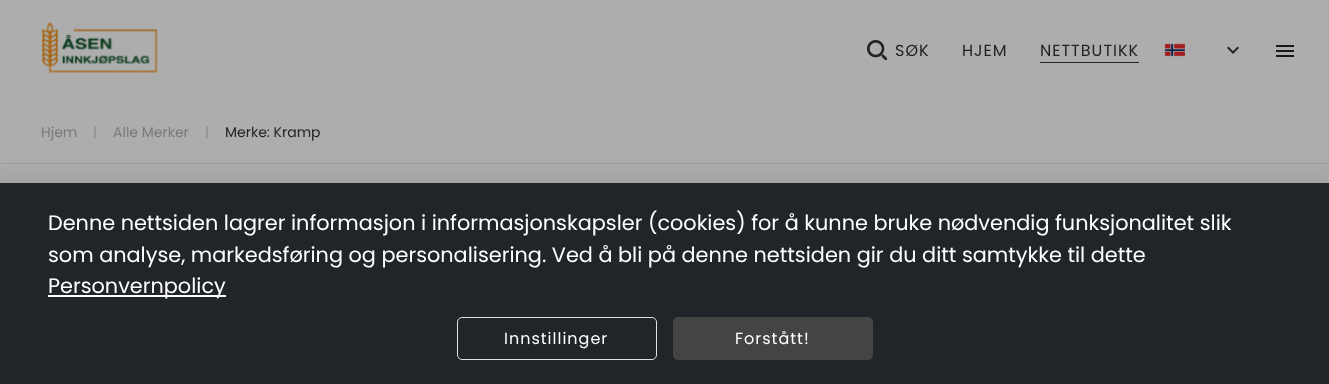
async function draw(canvas) {
  canvas.width = 1329
  canvas.height = 384
  const ctx = canvas.getContext('2d')
  ctx.miterLimit = 4
  ctx.fontKerning = 'normal'
  async function loadImage(src) {
    const img = new Image()
    img.src = src
    await img.decode()
    return img
  }

  ctx.fillStyle = '#adadad'
  ctx.fillRect(0, 0, 1329, 384)
  ctx.drawImage(await loadImage('image0.png'), 41, 21, 117, 53)
  ctx.drawImage(await loadImage('image1.png'), 867, 40, 20, 20)
  ctx.letterSpacing = '1px'
  ctx.font = '16px Poppins'
  ctx.fillStyle = '#232323'
  ctx.fillText('SØK', 895, 56)
  ctx.fillText('HJEM', 962, 56)
  ctx.fillText('NETTBUTIKK', 1040, 56)
  ctx.fillRect(1040, 62, 99, 1)
  ctx.drawImage(await loadImage('image2.png'), 1164, 43, 21, 14)
  ctx.drawImage(await loadImage('image3.png'), 1227, 46, 12, 8)
  ctx.drawImage(await loadImage('image4.png'), 1276, 45, 18, 12)
  ctx.fillStyle = '#a0a0a0'
  ctx.fillRect(0, 163, 1329, 1)
  ctx.letterSpacing = '0px'
  ctx.font = '14px Poppins'
  ctx.fillStyle = '#7a7a7a'
  ctx.fillText('Hjem', 41, 137)
  ctx.fillStyle = '#8d8d8d'
  ctx.fillText('|', 93, 137)
  ctx.fillStyle = '#7a7a7a'
  ctx.fillText('Alle Merker', 113, 137)
  ctx.fillStyle = '#8d8d8d'
  ctx.fillText('|', 205, 137)
  ctx.fillStyle = '#232323'
  ctx.fillText('Merke: Kramp', 225, 137)
  ctx.fillStyle = '#0000001f'
  ctx.filter = 'blur(15px)'
  ctx.beginPath()
  ctx.rect(-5, 184, 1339, 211)
  ctx.fill()
  ctx.filter = 'none'
  ctx.fillStyle = '#212529'
  ctx.fillRect(0, 183, 1329, 201)
  ctx.font = '20.8px Poppins'
  ctx.fillStyle = '#fff'
  ctx.fillText('Denne nettsiden lagrer informasjon i informasjonskapsler (cookies) for å kunne bruke nødvendig funksjonalitet slik', 48, 230)
  ctx.fillText('som analyse, markedsføring og personalisering. Ved å bli på denne nettsiden gir du ditt samtykke til dette', 48, 262)
  ctx.fillRect(48, 295, 178, 2)
  ctx.fillText('Personvernpolicy', 48, 293)
  ctx.beginPath()
  ctx.roundRect(457.5, 317.5, 199, 42, 4.5)
  ctx.strokeStyle = '#dee2e6'
  ctx.stroke()
  ctx.letterSpacing = '1px'
  ctx.font = '16px Poppins'
  ctx.fillText('Innstillinger', 504, 344)
  ctx.fillStyle = '#444'
  ctx.beginPath()
  ctx.roundRect(673, 317, 200, 43, 5)
  ctx.fill()
  ctx.fillStyle = '#fff'
  ctx.fillText('Forstått!', 735, 344)
}

draw(document.querySelector('canvas'))
